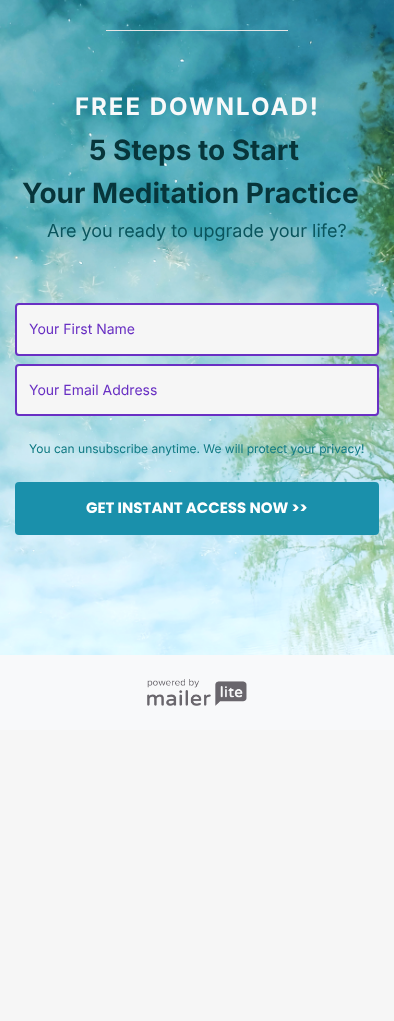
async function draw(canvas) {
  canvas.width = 394
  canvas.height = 1021
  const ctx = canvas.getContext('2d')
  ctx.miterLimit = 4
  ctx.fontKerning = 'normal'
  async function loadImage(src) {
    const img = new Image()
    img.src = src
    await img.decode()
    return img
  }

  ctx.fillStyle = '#f6f6f6'
  ctx.fillRect(0, 0, 394, 1021)
  ctx.drawImage(await loadImage('image0.png'), 0, 0, 394, 655)
  ctx.fillStyle = '#e5e5e5'
  ctx.fillRect(106, 30, 182, 1)
  ctx.letterSpacing = '2px'
  ctx.font = 'bold 24px Inter'
  ctx.fillStyle = '#f8f9fa'
  ctx.fillText('FREE DOWNLOAD!', 75, 115)
  ctx.letterSpacing = '0px'
  ctx.font = 'bold 28px Inter'
  ctx.fillStyle = '#07353a'
  ctx.fillText('5 Steps to Start', 89, 160)
  ctx.fillText('Your Meditation Practice', 22, 203)
  ctx.font = '18px Inter'
  ctx.fillStyle = '#0a555d'
  ctx.fillText('Are you ready to upgrade your life?', 47, 237)
  ctx.fillStyle = '#f6f6f6'
  ctx.beginPath()
  ctx.roundRect(16, 304, 362, 51, 3)
  ctx.fill()
  ctx.strokeStyle = '#6930c3'
  ctx.lineWidth = 2
  ctx.stroke()
  ctx.font = '14px Inter'
  ctx.fillStyle = '#6930c3'
  ctx.fillText('Your First Name', 29, 334)
  ctx.fillStyle = '#f6f6f6'
  ctx.beginPath()
  ctx.roundRect(16, 365, 362, 50, 3)
  ctx.fill()
  ctx.stroke()
  ctx.fillStyle = '#6930c3'
  ctx.fillText('Your Email Address', 29, 395)
  ctx.font = '12px Inter'
  ctx.fillStyle = '#0f7983'
  ctx.fillText('You can unsubscribe anytime. We will protect your privacy!', 29, 453)
  ctx.fillStyle = '#1a90ab'
  ctx.beginPath()
  ctx.roundRect(15, 482, 364, 53, 4)
  ctx.fill()
  ctx.font = 'bold 15px Poppins'
  ctx.fillStyle = '#fff'
  ctx.fillText('GET INSTANT ACCESS NOW >>', 86, 513)
  ctx.fillStyle = '#f8f9fa'
  ctx.fillRect(0, 655, 394, 75)
  ctx.drawImage(await loadImage('image1.png'), 147, 679, 100, 27)
}

draw(document.querySelector('canvas'))
